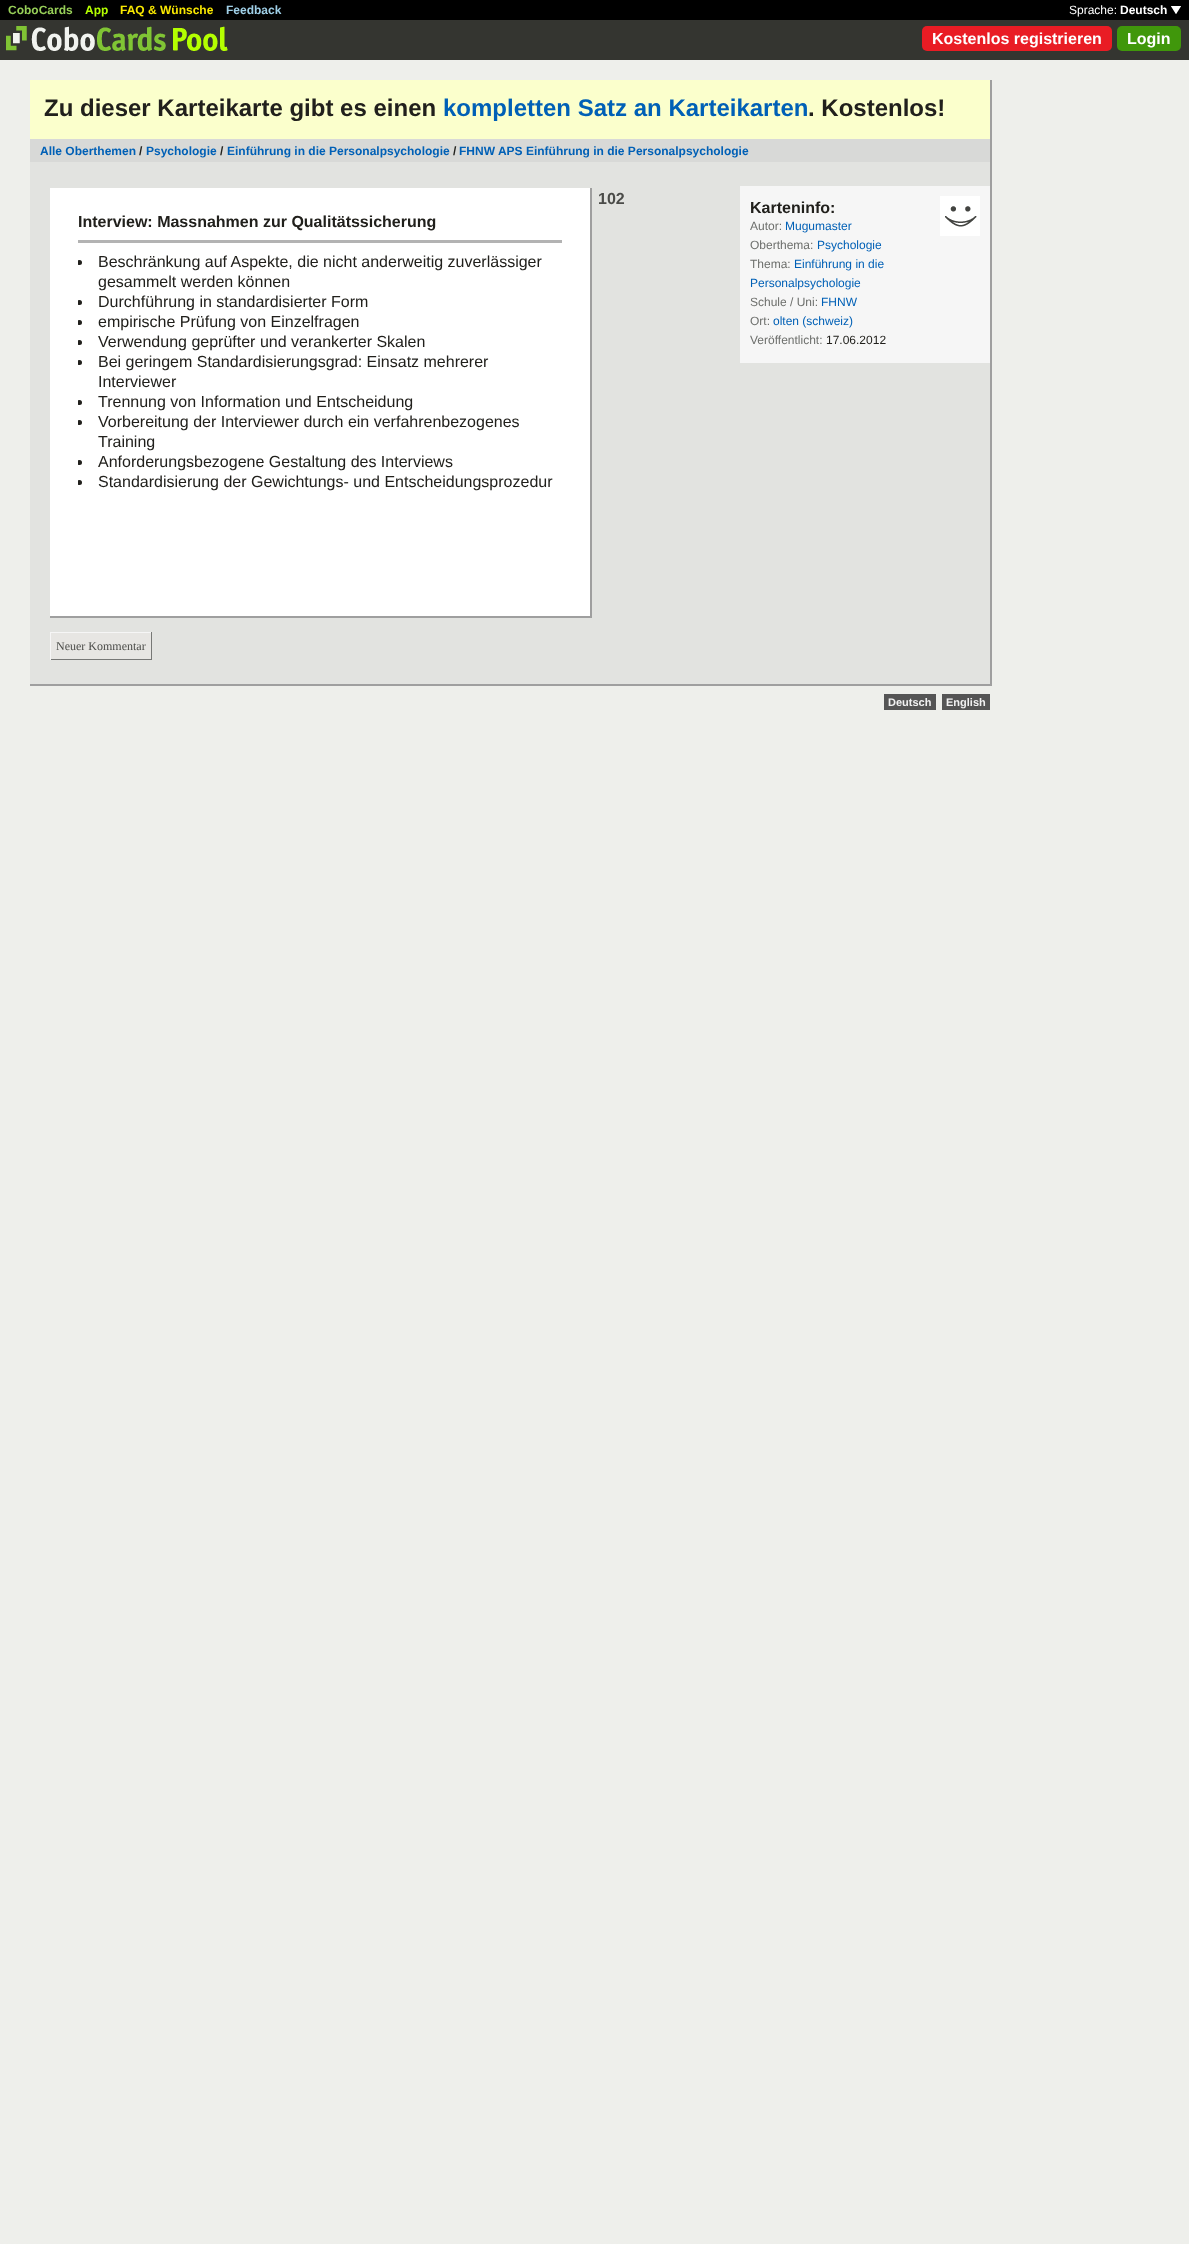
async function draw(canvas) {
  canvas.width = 1189
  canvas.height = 2244
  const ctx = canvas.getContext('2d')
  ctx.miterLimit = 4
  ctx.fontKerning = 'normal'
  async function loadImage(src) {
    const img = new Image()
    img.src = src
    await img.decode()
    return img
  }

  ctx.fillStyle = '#eeefeb'
  ctx.fillRect(0, 0, 1189, 2244)
  ctx.fillStyle = '#343530'
  ctx.fillRect(0, 20, 1189, 40)
  ctx.fillStyle = '#000'
  ctx.fillRect(0, 0, 1189, 20)
  ctx.font = 'bold 12px Liberation Sans'
  ctx.fillStyle = '#97cf58'
  ctx.fillText('CoboCards', 8, 14)
  ctx.fillStyle = '#b4ff00'
  ctx.fillText('App', 85, 14)
  ctx.fillStyle = '#f9e800'
  ctx.fillText('FAQ & Wünsche', 120, 14)
  ctx.fillStyle = '#9fcfe7'
  ctx.fillText('Feedback', 226, 14)
  ctx.font = '12px Liberation Sans'
  ctx.fillStyle = '#fff'
  ctx.fillText('Sprache:', 1069, 14)
  ctx.font = 'bold 12px Liberation Sans'
  ctx.fillText('Deutsch', 1120, 14)
  ctx.drawImage(await loadImage('image0.png'), 1171, 6, 10, 8)
  ctx.drawImage(await loadImage('image1.png'), 6, 26, 222, 25)
  ctx.fillStyle = '#e91c24'
  ctx.beginPath()
  ctx.roundRect(922, 26, 190, 25, 5)
  ctx.fill()
  ctx.font = 'bold 16px Liberation Sans'
  ctx.fillStyle = '#fff'
  ctx.fillText('Kostenlos registrieren', 932, 44)
  ctx.fillStyle = '#40970b'
  ctx.beginPath()
  ctx.roundRect(1117, 26, 64, 25, 5)
  ctx.fill()
  ctx.fillStyle = '#fff'
  ctx.fillText('Login', 1127, 44)
  ctx.fillStyle = '#e2e3e0'
  ctx.fillRect(30, 162, 960, 522)
  ctx.fillStyle = '#9f9f9f'
  ctx.fillRect(990, 80, 2, 606)
  ctx.fillRect(30, 684, 962, 2)
  ctx.fillStyle = '#fbffcc'
  ctx.fillRect(30, 80, 960, 59)
  ctx.font = 'bold 24px Liberation Sans'
  ctx.fillStyle = '#21201c'
  ctx.fillText('Zu dieser Karteikarte gibt es einen', 44, 116)
  ctx.fillStyle = '#0060b6'
  ctx.fillText('kompletten Satz an Karteikarten', 443, 116)
  ctx.fillStyle = '#21201c'
  ctx.fillText('. Kostenlos!', 808, 116)
  ctx.fillStyle = '#d8d9d7'
  ctx.fillRect(30, 139, 960, 23)
  ctx.font = 'bold 12px Liberation Sans'
  ctx.fillStyle = '#0060b6'
  ctx.fillText('Alle Oberthemen', 40, 155)
  ctx.fillStyle = '#21201c'
  ctx.fillText('/', 139, 155)
  ctx.fillStyle = '#0060b6'
  ctx.fillText('Psychologie', 146, 155)
  ctx.fillStyle = '#21201c'
  ctx.fillText('/', 220, 155)
  ctx.fillStyle = '#0060b6'
  ctx.fillText('Einführung in die Personalpsychologie', 227, 155)
  ctx.fillStyle = '#21201c'
  ctx.fillText('/', 453, 155)
  ctx.fillStyle = '#0060b6'
  ctx.fillText('FHNW APS Einführung in die Personalpsychologie', 459, 155)
  ctx.fillStyle = '#fff'
  ctx.fillRect(50, 188, 540, 428)
  ctx.fillStyle = '#9f9f9f'
  ctx.fillRect(590, 188, 2, 430)
  ctx.fillRect(50, 616, 542, 2)
  ctx.font = 'bold 16px Liberation Sans'
  ctx.fillStyle = '#4b4c49'
  ctx.fillText('102', 598, 204)
  ctx.fillStyle = '#21201c'
  ctx.fillText('Interview: Massnahmen zur Qualitätssicherung', 78, 227)
  ctx.fillStyle = '#b3b3b3'
  ctx.fillRect(78, 240, 484, 3)
  ctx.save()
  ctx.beginPath()
  ctx.rect(78, 252, 484, 340)
  ctx.clip()
  ctx.fillStyle = '#21201c'
  ctx.beginPath()
  ctx.arc(79.5, 262.5, 2.5, 0, 2 * Math.PI)
  ctx.fill()
  ctx.restore()
  ctx.font = '16px Liberation Sans'
  ctx.fillStyle = '#21201c'
  ctx.fillText('Beschränkung auf Aspekte, die nicht anderweitig zuverlässiger', 98, 267)
  ctx.fillText('gesammelt werden können', 98, 287)
  ctx.save()
  ctx.beginPath()
  ctx.rect(78, 252, 484, 340)
  ctx.clip()
  ctx.beginPath()
  ctx.arc(79.5, 302.5, 2.5, 0, 2 * Math.PI)
  ctx.fill()
  ctx.restore()
  ctx.fillText('Durchführung in standardisierter Form', 98, 307)
  ctx.save()
  ctx.beginPath()
  ctx.rect(78, 252, 484, 340)
  ctx.clip()
  ctx.beginPath()
  ctx.arc(79.5, 322.5, 2.5, 0, 2 * Math.PI)
  ctx.fill()
  ctx.restore()
  ctx.fillText('empirische Prüfung von Einzelfragen', 98, 327)
  ctx.save()
  ctx.beginPath()
  ctx.rect(78, 252, 484, 340)
  ctx.clip()
  ctx.beginPath()
  ctx.arc(79.5, 342.5, 2.5, 0, 2 * Math.PI)
  ctx.fill()
  ctx.restore()
  ctx.fillText('Verwendung geprüfter und verankerter Skalen', 98, 347)
  ctx.save()
  ctx.beginPath()
  ctx.rect(78, 252, 484, 340)
  ctx.clip()
  ctx.beginPath()
  ctx.arc(79.5, 362.5, 2.5, 0, 2 * Math.PI)
  ctx.fill()
  ctx.restore()
  ctx.fillText('Bei geringem Standardisierungsgrad: Einsatz mehrerer', 98, 367)
  ctx.fillText('Interviewer', 98, 387)
  ctx.save()
  ctx.beginPath()
  ctx.rect(78, 252, 484, 340)
  ctx.clip()
  ctx.beginPath()
  ctx.arc(79.5, 402.5, 2.5, 0, 2 * Math.PI)
  ctx.fill()
  ctx.restore()
  ctx.fillText('Trennung von Information und Entscheidung', 98, 407)
  ctx.save()
  ctx.beginPath()
  ctx.rect(78, 252, 484, 340)
  ctx.clip()
  ctx.beginPath()
  ctx.arc(79.5, 422.5, 2.5, 0, 2 * Math.PI)
  ctx.fill()
  ctx.restore()
  ctx.fillText('Vorbereitung der Interviewer durch ein verfahrenbezogenes', 98, 427)
  ctx.fillText('Training', 98, 447)
  ctx.save()
  ctx.beginPath()
  ctx.rect(78, 252, 484, 340)
  ctx.clip()
  ctx.beginPath()
  ctx.arc(79.5, 462.5, 2.5, 0, 2 * Math.PI)
  ctx.fill()
  ctx.restore()
  ctx.fillText('Anforderungsbezogene Gestaltung des Interviews', 98, 467)
  ctx.save()
  ctx.beginPath()
  ctx.rect(78, 252, 484, 340)
  ctx.clip()
  ctx.beginPath()
  ctx.arc(79.5, 482.5, 2.5, 0, 2 * Math.PI)
  ctx.fill()
  ctx.restore()
  ctx.fillText('Standardisierung der Gewichtungs- und Entscheidungsprozedur', 98, 487)
  ctx.fillStyle = '#e7e6e3'
  ctx.fillRect(51, 633, 100, 26)
  ctx.fillStyle = '#f6f6f6'
  ctx.fillRect(50, 632, 102, 1)
  ctx.fillStyle = '#777876'
  ctx.fillRect(151, 632, 1, 28)
  ctx.fillRect(50, 659, 102, 1)
  ctx.fillStyle = '#f6f6f6'
  ctx.fillRect(50, 632, 1, 28)
  ctx.font = '12px Liberation Serif'
  ctx.fillStyle = '#4b4c49'
  ctx.fillText('Neuer Kommentar', 56, 650)
  ctx.fillStyle = '#f6f6f6'
  ctx.fillRect(740, 186, 250, 177)
  ctx.font = 'bold 16px Liberation Sans'
  ctx.fillStyle = '#21201c'
  ctx.fillText('Karteninfo:', 750, 213)
  ctx.drawImage(await loadImage('image2.png'), 940, 196, 40, 40)
  ctx.font = '12px Liberation Sans'
  ctx.fillStyle = '#6d6f6c'
  ctx.fillText('Autor:', 750, 230)
  ctx.fillStyle = '#0060b6'
  ctx.fillText('Mugumaster', 785, 230)
  ctx.fillStyle = '#6d6f6c'
  ctx.fillText('Oberthema:', 750, 249)
  ctx.fillStyle = '#0060b6'
  ctx.fillText('Psychologie', 817, 249)
  ctx.fillStyle = '#6d6f6c'
  ctx.fillText('Thema:', 750, 268)
  ctx.fillStyle = '#0060b6'
  ctx.fillText('Einführung in die', 794, 268)
  ctx.fillText('Personalpsychologie', 750, 287)
  ctx.fillStyle = '#6d6f6c'
  ctx.fillText('Schule / Uni:', 750, 306)
  ctx.fillStyle = '#0060b6'
  ctx.fillText('FHNW', 821, 306)
  ctx.fillStyle = '#6d6f6c'
  ctx.fillText('Ort:', 750, 325)
  ctx.fillStyle = '#0060b6'
  ctx.fillText('olten (schweiz)', 773, 325)
  ctx.fillStyle = '#6d6f6c'
  ctx.fillText('Veröffentlicht:', 750, 344)
  ctx.fillStyle = '#21201c'
  ctx.fillText('17.06.2012', 826, 344)
  ctx.fillStyle = '#555'
  ctx.fillRect(884, 694, 52, 16)
  ctx.font = 'bold 11px Liberation Sans'
  ctx.fillStyle = '#f2f2f2'
  ctx.fillText('Deutsch', 888, 706)
  ctx.fillStyle = '#555'
  ctx.fillRect(942, 694, 48, 16)
  ctx.fillStyle = '#f2f2f2'
  ctx.fillText('English', 946, 706)
}

draw(document.querySelector('canvas'))
